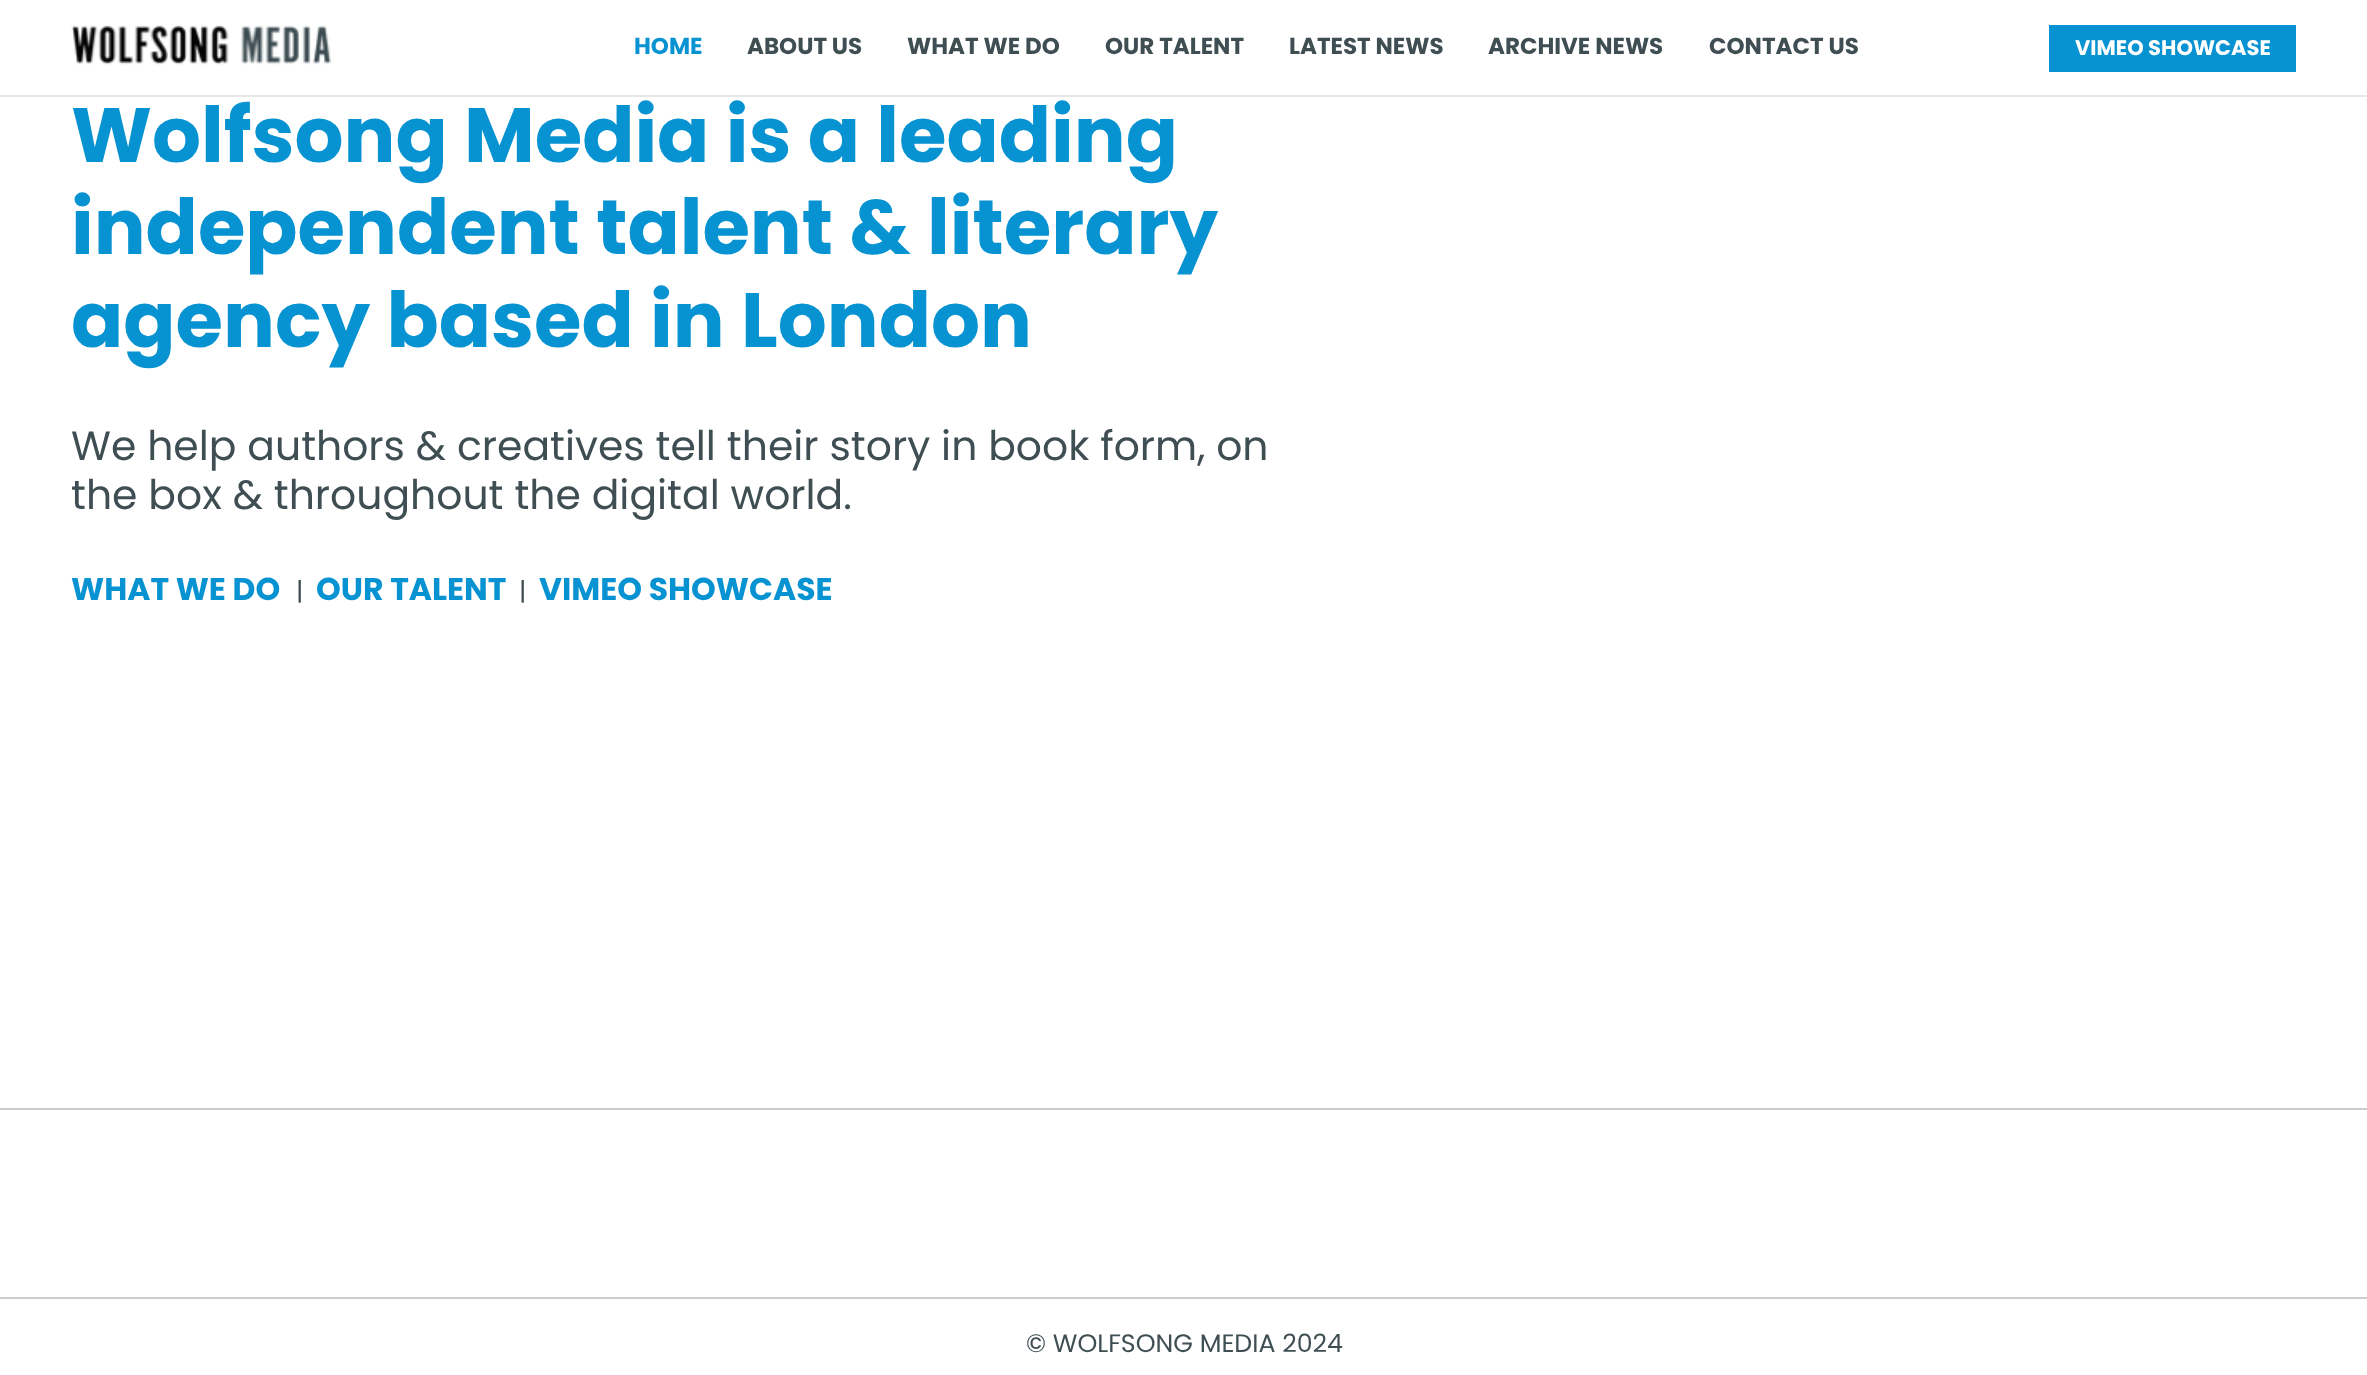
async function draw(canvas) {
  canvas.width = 2367
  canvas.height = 1375
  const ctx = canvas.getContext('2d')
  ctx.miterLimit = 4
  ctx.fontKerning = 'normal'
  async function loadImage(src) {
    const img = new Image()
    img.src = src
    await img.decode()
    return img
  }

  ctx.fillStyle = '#fff'
  ctx.fillRect(0, 0, 2367, 1375)
  ctx.fillStyle = '#e6e8e8'
  ctx.fillRect(0, 95, 2367, 2)
  ctx.drawImage(await loadImage('image0.png'), 71, 25, 260, 40)
  ctx.font = 'bold 23px Poppins'
  ctx.fillStyle = '#0792d1'
  ctx.fillText('HOME', 634, 54)
  ctx.fillStyle = '#3f4e53'
  ctx.fillText('ABOUT US', 747, 54)
  ctx.fillText('WHAT WE DO', 907, 54)
  ctx.fillText('OUR TALENT', 1105, 54)
  ctx.fillText('LATEST NEWS', 1289, 54)
  ctx.fillText('ARCHIVE NEWS', 1488, 54)
  ctx.fillText('CONTACT US', 1709, 54)
  ctx.fillStyle = '#0792d1'
  ctx.fillRect(2049, 25, 247, 47)
  ctx.font = 'bold 21px Poppins'
  ctx.fillStyle = '#fff'
  ctx.fillText('VIMEO SHOWCASE', 2075, 55)
  ctx.font = 'bold 77px Poppins'
  ctx.fillStyle = '#0792d1'
  ctx.fillText('Wolfsong Media is a leading', 71, 162)
  ctx.fillText('independent talent & literary', 71, 254)
  ctx.fillText('agency based in London', 71, 347)
  ctx.font = '40.9px Poppins'
  ctx.fillStyle = '#3f4e53'
  ctx.fillText('We help authors & creatives tell their story in book form, on', 71, 460)
  ctx.fillText('the box & throughout the digital world.', 71, 509)
  ctx.font = 'bold 31.5px Poppins'
  ctx.fillStyle = '#0792d1'
  ctx.fillText('WHAT WE DO', 71, 600)
  ctx.font = '25.25px Poppins'
  ctx.fillStyle = '#3f4e53'
  ctx.fillText('|', 296, 600)
  ctx.font = 'bold 31.5px Poppins'
  ctx.fillStyle = '#0792d1'
  ctx.fillText('OUR TALENT', 316, 600)
  ctx.font = '25.25px Poppins'
  ctx.fillStyle = '#3f4e53'
  ctx.fillText('|', 519, 600)
  ctx.font = 'bold 31.5px Poppins'
  ctx.fillStyle = '#0792d1'
  ctx.fillText('VIMEO SHOWCASE', 539, 600)
  ctx.fillStyle = '#ccc'
  ctx.fillRect(0, 1108, 2367, 2)
  ctx.fillRect(0, 1297, 2367, 2)
  ctx.font = '25.25px Poppins'
  ctx.fillStyle = '#3f4e53'
  ctx.fillText('© WOLFSONG MEDIA 2024', 1026, 1352)
}

draw(document.querySelector('canvas'))
